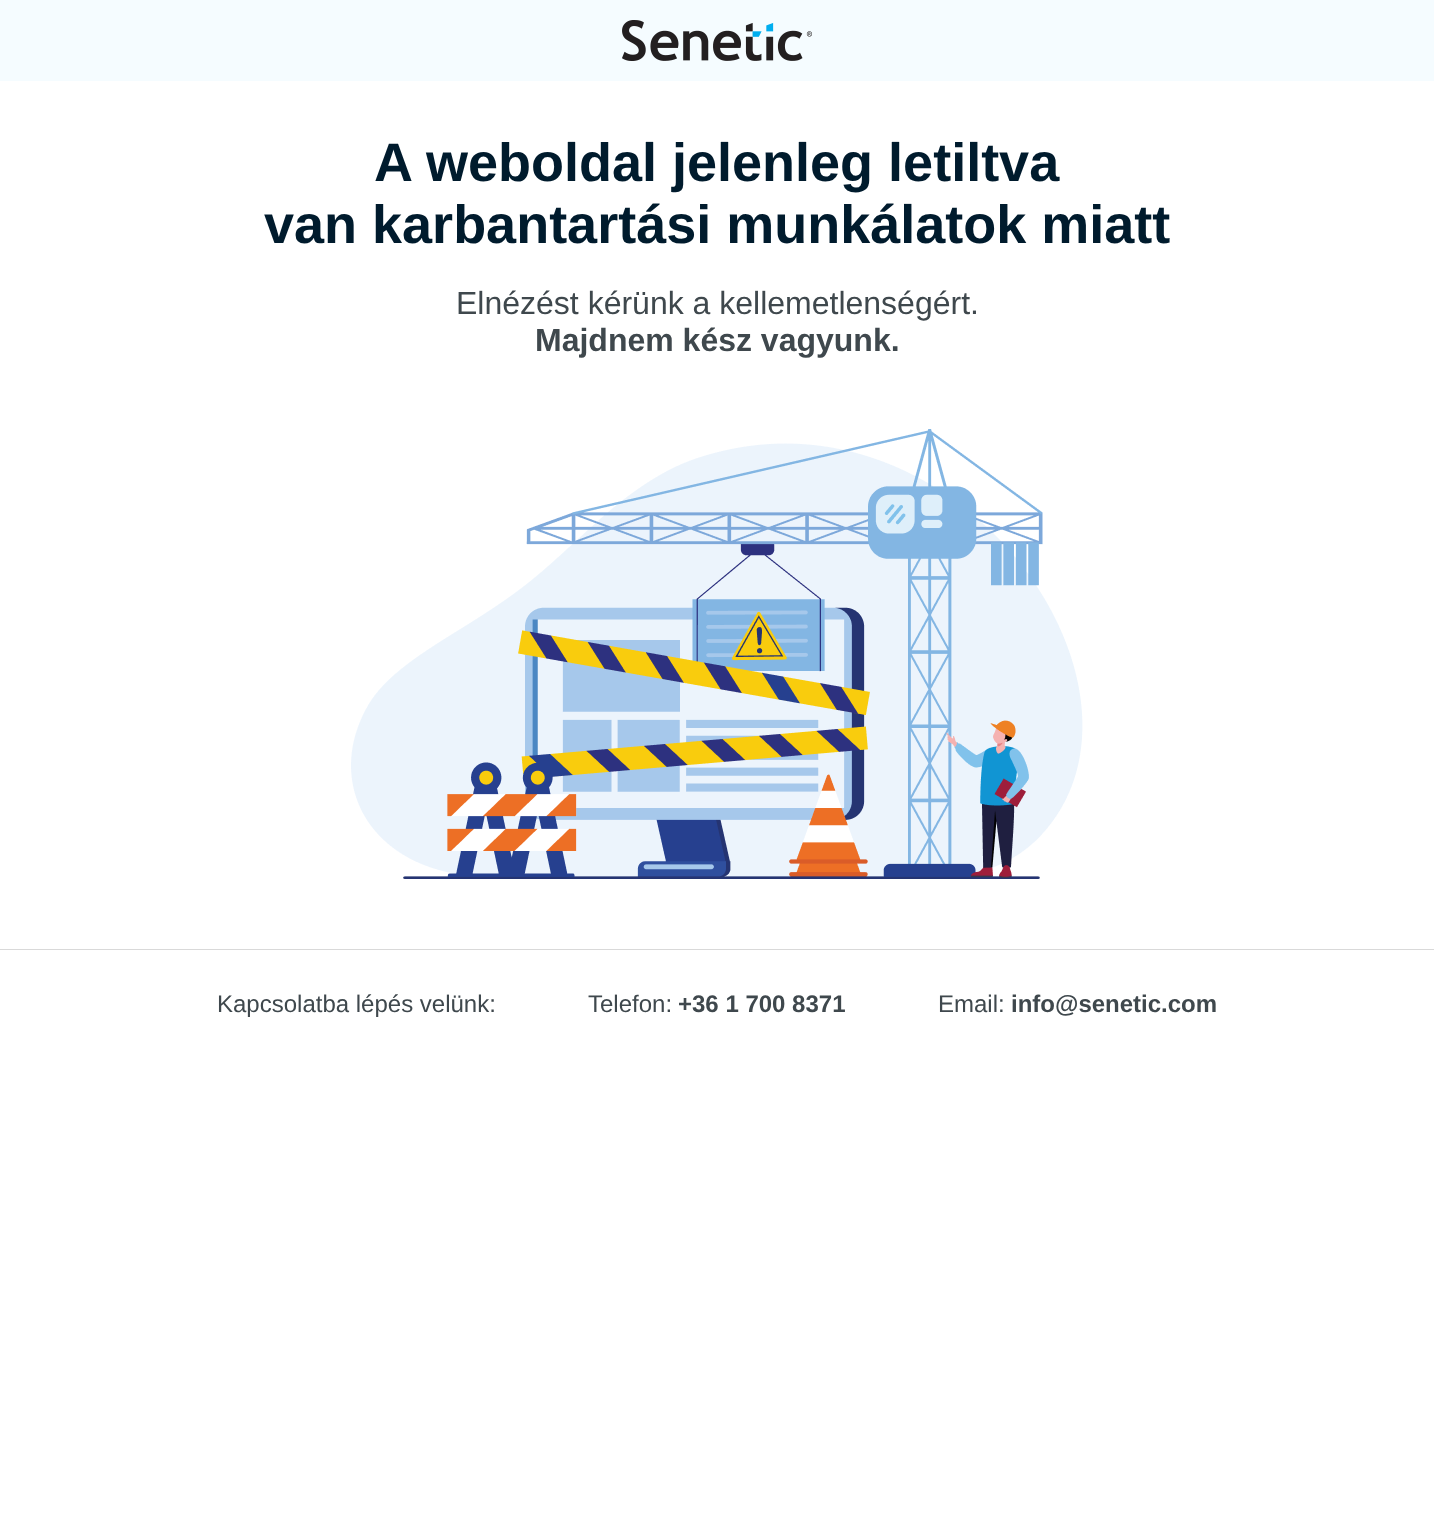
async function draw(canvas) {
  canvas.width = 1434
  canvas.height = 1537
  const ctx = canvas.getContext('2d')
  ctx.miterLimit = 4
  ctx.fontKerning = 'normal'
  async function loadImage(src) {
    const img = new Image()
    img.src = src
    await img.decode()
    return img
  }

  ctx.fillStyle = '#fff'
  ctx.fillRect(0, 0, 1434, 1537)
  ctx.fillStyle = '#f5fcff'
  ctx.fillRect(0, 0, 1434, 81)
  ctx.drawImage(await loadImage('image0.png'), 622, 20, 190, 41)
  ctx.font = 'bold 54px Liberation Sans'
  ctx.fillStyle = '#001b2d'
  ctx.fillText('A weboldal jelenleg letiltva', 374, 181)
  ctx.fillText('van karbantartási munkálatok miatt', 264, 243)
  ctx.font = '32px Liberation Sans'
  ctx.fillStyle = '#3f484d'
  ctx.fillText('Elnézést kérünk a kellemetlenségért.', 456, 314)
  ctx.font = 'bold 32px Liberation Sans'
  ctx.fillText('Majdnem kész vagyunk.', 535, 351)
  ctx.drawImage(await loadImage('image1.png'), 351, 429, 732, 450)
  ctx.fillStyle = '#d9d9d9'
  ctx.fillRect(0, 949, 1434, 1)
  ctx.font = '24px Liberation Sans'
  ctx.fillStyle = '#3f484d'
  ctx.fillText('Kapcsolatba lépés velünk:', 217, 1012)
  ctx.fillText('Telefon:', 588, 1012)
  ctx.font = 'bold 24px Liberation Sans'
  ctx.fillText('+36 1 700 8371', 678, 1012)
  ctx.font = '24px Liberation Sans'
  ctx.fillText('Email:', 938, 1012)
  ctx.font = 'bold 24px Liberation Sans'
  ctx.fillText('info@senetic.com', 1011, 1012)
}

draw(document.querySelector('canvas'))
